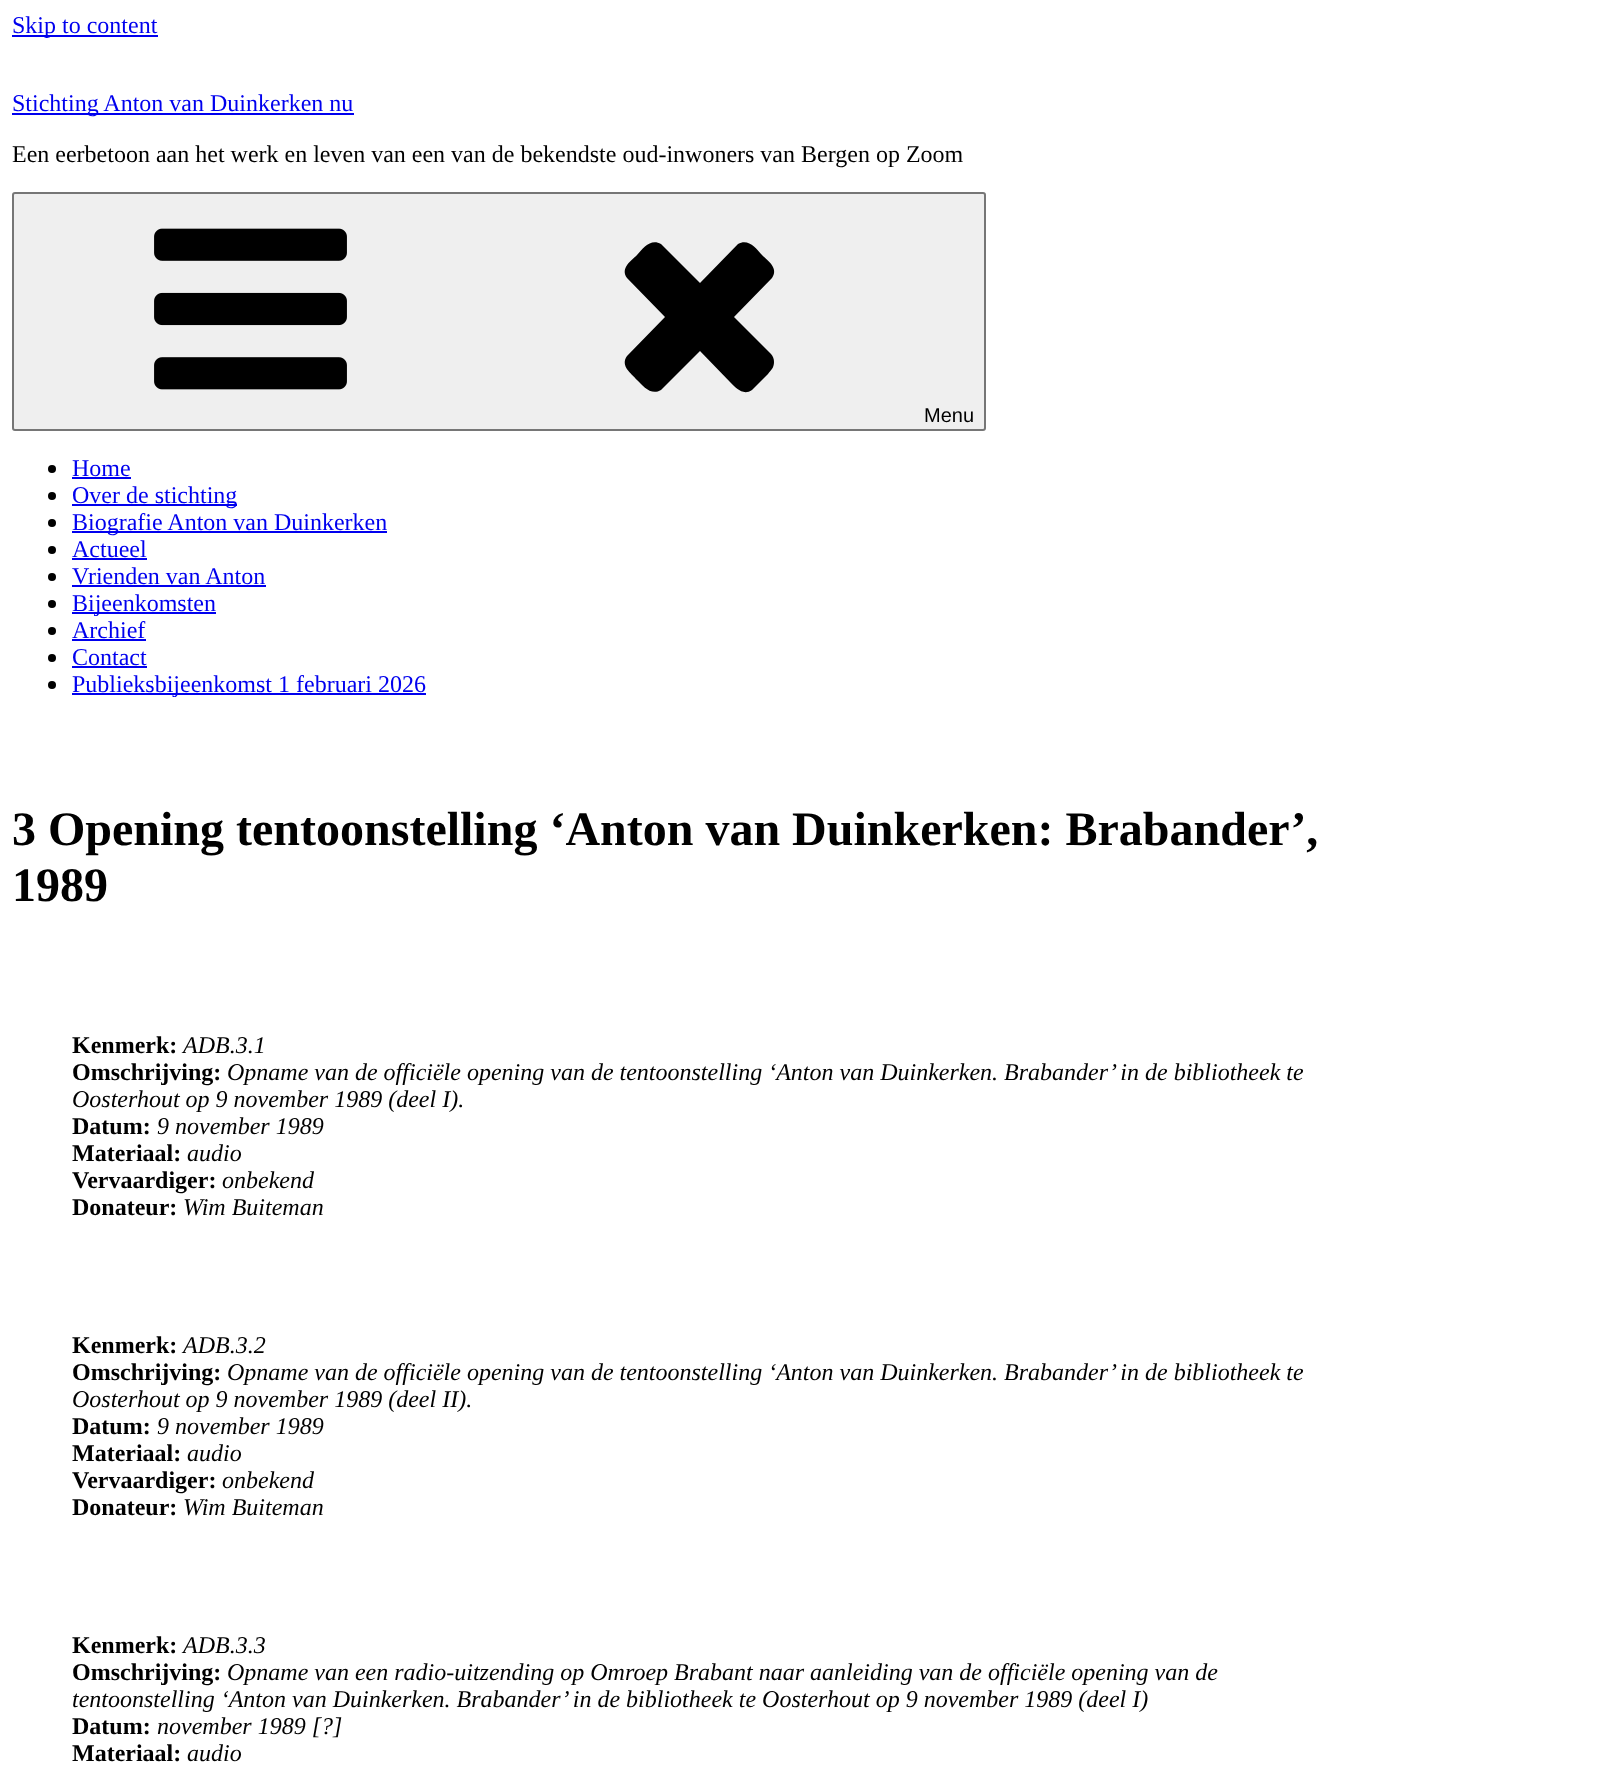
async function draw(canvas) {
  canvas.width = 1623
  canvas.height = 1782
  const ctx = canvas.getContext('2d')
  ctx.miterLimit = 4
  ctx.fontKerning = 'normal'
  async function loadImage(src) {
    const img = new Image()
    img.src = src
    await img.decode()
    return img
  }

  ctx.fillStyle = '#fff'
  ctx.fillRect(0, 0, 1623, 1782)
  ctx.fillStyle = '#00e'
  ctx.fillRect(12, 35, 146, 2)
  ctx.font = '24px Liberation Serif'
  ctx.fillText('Skip to content', 12, 33)
  ctx.fillRect(12, 113, 342, 2)
  ctx.fillText('Stichting Anton van Duinkerken nu', 12, 111)
  ctx.fillStyle = '#000'
  ctx.fillText('Een eerbetoon aan het werk en leven van een van de bekendste oud-inwoners van Bergen op Zoom', 12, 162)
  ctx.fillStyle = '#efefef'
  ctx.beginPath()
  ctx.roundRect(13, 193, 972, 237, 2)
  ctx.fill()
  ctx.strokeStyle = '#767676'
  ctx.lineWidth = 2
  ctx.stroke()
  ctx.drawImage(await loadImage('image0.png'), 154, 228, 193, 162)
  ctx.fillStyle = '#000'
  ctx.beginPath()
  ctx.moveTo(774, 362)
  ctx.bezierCurveTo(774, 368, 771, 370, 768, 374)
  ctx.lineTo(752, 390)
  ctx.bezierCurveTo(743, 396, 736, 388, 730, 382)
  ctx.lineTo(700, 351)
  ctx.lineTo(661, 390)
  ctx.bezierCurveTo(651, 396, 643, 386, 637, 380)
  ctx.bezierCurveTo(631, 373, 620, 366, 627, 356)
  ctx.lineTo(665, 317)
  ctx.lineTo(627, 278)
  ctx.bezierCurveTo(620, 268, 631, 261, 637, 255)
  ctx.bezierCurveTo(643, 248, 651, 238, 661, 244)
  ctx.lineTo(700, 283)
  ctx.lineTo(738, 244)
  ctx.bezierCurveTo(748, 238, 756, 248, 762, 255)
  ctx.bezierCurveTo(768, 261, 779, 268, 772, 278)
  ctx.lineTo(734, 317)
  ctx.lineTo(771, 354)
  ctx.bezierCurveTo(773, 356, 774, 359, 774, 362)
  ctx.closePath()
  ctx.fill()
  ctx.font = '20px Liberation Sans'
  ctx.fillText('Menu', 924, 422)
  ctx.beginPath()
  ctx.arc(52, 469, 4, 0, 2 * Math.PI)
  ctx.fill()
  ctx.font = '24px Liberation Serif'
  ctx.fillStyle = '#00e'
  ctx.fillText('Home', 72, 476)
  ctx.fillRect(72, 477, 59, 2)
  ctx.fillStyle = '#000'
  ctx.beginPath()
  ctx.arc(52, 496, 4, 0, 2 * Math.PI)
  ctx.fill()
  ctx.fillStyle = '#00e'
  ctx.fillRect(72, 504, 165, 2)
  ctx.fillText('Over de stichting', 72, 503)
  ctx.fillStyle = '#000'
  ctx.beginPath()
  ctx.arc(52, 523, 4, 0, 2 * Math.PI)
  ctx.fill()
  ctx.fillStyle = '#00e'
  ctx.fillRect(72, 531, 315, 2)
  ctx.fillText('Biografie Anton van Duinkerken', 72, 530)
  ctx.fillStyle = '#000'
  ctx.beginPath()
  ctx.arc(52, 550, 4, 0, 2 * Math.PI)
  ctx.fill()
  ctx.fillStyle = '#00e'
  ctx.fillText('Actueel', 72, 557)
  ctx.fillRect(72, 558, 75, 2)
  ctx.fillStyle = '#000'
  ctx.beginPath()
  ctx.arc(52, 577, 4, 0, 2 * Math.PI)
  ctx.fill()
  ctx.fillStyle = '#00e'
  ctx.fillText('Vrienden van Anton', 72, 584)
  ctx.fillRect(72, 585, 194, 2)
  ctx.fillStyle = '#000'
  ctx.beginPath()
  ctx.arc(52, 604, 4, 0, 2 * Math.PI)
  ctx.fill()
  ctx.fillStyle = '#00e'
  ctx.fillRect(72, 612, 144, 2)
  ctx.fillText('Bijeenkomsten', 72, 611)
  ctx.fillStyle = '#000'
  ctx.beginPath()
  ctx.arc(52, 631, 4, 0, 2 * Math.PI)
  ctx.fill()
  ctx.fillStyle = '#00e'
  ctx.fillText('Archief', 72, 638)
  ctx.fillRect(72, 639, 74, 2)
  ctx.fillStyle = '#000'
  ctx.beginPath()
  ctx.arc(52, 658, 4, 0, 2 * Math.PI)
  ctx.fill()
  ctx.fillStyle = '#00e'
  ctx.fillText('Contact', 72, 665)
  ctx.fillRect(72, 666, 75, 2)
  ctx.fillStyle = '#000'
  ctx.beginPath()
  ctx.arc(52, 685, 4, 0, 2 * Math.PI)
  ctx.fill()
  ctx.fillStyle = '#00e'
  ctx.fillRect(72, 693, 354, 2)
  ctx.fillText('Publieksbijeenkomst 1 februari 2026', 72, 692)
  ctx.font = 'bold 48px Liberation Serif'
  ctx.fillStyle = '#000'
  ctx.fillText('3 Opening tentoonstelling ‘Anton van Duinkerken: Brabander’,', 12, 845)
  ctx.fillText('1989', 12, 901)
  ctx.font = 'bold 24px Liberation Serif'
  ctx.fillText('Kenmerk:', 72, 1053)
  ctx.font = 'italic 24px Liberation Serif'
  ctx.fillText('ADB.3.1', 183, 1053)
  ctx.font = 'bold 24px Liberation Serif'
  ctx.fillText('Omschrijving:', 72, 1080)
  ctx.font = 'italic 24px Liberation Serif'
  ctx.fillText('Opname van de officiële opening van de tentoonstelling ‘Anton van Duinkerken. Brabander’ in de bibliotheek te', 227, 1080)
  ctx.fillText('Oosterhout op 9 november 1989 (deel I).', 72, 1107)
  ctx.font = 'bold 24px Liberation Serif'
  ctx.fillText('Datum:', 72, 1134)
  ctx.font = 'italic 24px Liberation Serif'
  ctx.fillText('9 november 1989', 157, 1134)
  ctx.font = 'bold 24px Liberation Serif'
  ctx.fillText('Materiaal:', 72, 1161)
  ctx.font = 'italic 24px Liberation Serif'
  ctx.fillText('audio', 187, 1161)
  ctx.font = 'bold 24px Liberation Serif'
  ctx.fillText('Vervaardiger:', 72, 1188)
  ctx.font = 'italic 24px Liberation Serif'
  ctx.fillText('onbekend', 222, 1188)
  ctx.font = 'bold 24px Liberation Serif'
  ctx.fillText('Donateur:', 72, 1215)
  ctx.font = 'italic 24px Liberation Serif'
  ctx.fillText('Wim Buiteman', 183, 1215)
  ctx.font = 'bold 24px Liberation Serif'
  ctx.fillText('Kenmerk:', 72, 1353)
  ctx.font = 'italic 24px Liberation Serif'
  ctx.fillText('ADB.3.2', 183, 1353)
  ctx.font = 'bold 24px Liberation Serif'
  ctx.fillText('Omschrijving:', 72, 1380)
  ctx.font = 'italic 24px Liberation Serif'
  ctx.fillText('Opname van de officiële opening van de tentoonstelling ‘Anton van Duinkerken. Brabander’ in de bibliotheek te', 227, 1380)
  ctx.fillText('Oosterhout op 9 november 1989 (deel II).', 72, 1407)
  ctx.font = 'bold 24px Liberation Serif'
  ctx.fillText('Datum:', 72, 1434)
  ctx.font = 'italic 24px Liberation Serif'
  ctx.fillText('9 november 1989', 157, 1434)
  ctx.font = 'bold 24px Liberation Serif'
  ctx.fillText('Materiaal:', 72, 1461)
  ctx.font = 'italic 24px Liberation Serif'
  ctx.fillText('audio', 187, 1461)
  ctx.font = 'bold 24px Liberation Serif'
  ctx.fillText('Vervaardiger:', 72, 1488)
  ctx.font = 'italic 24px Liberation Serif'
  ctx.fillText('onbekend', 222, 1488)
  ctx.font = 'bold 24px Liberation Serif'
  ctx.fillText('Donateur:', 72, 1515)
  ctx.font = 'italic 24px Liberation Serif'
  ctx.fillText('Wim Buiteman', 183, 1515)
  ctx.font = 'bold 24px Liberation Serif'
  ctx.fillText('Kenmerk:', 72, 1653)
  ctx.font = 'italic 24px Liberation Serif'
  ctx.fillText('ADB.3.3', 183, 1653)
  ctx.font = 'bold 24px Liberation Serif'
  ctx.fillText('Omschrijving:', 72, 1680)
  ctx.font = 'italic 24px Liberation Serif'
  ctx.fillText('Opname van een radio-uitzending op Omroep Brabant naar aanleiding van de officiële opening van de', 227, 1680)
  ctx.fillText('tentoonstelling ‘Anton van Duinkerken. Brabander’ in de bibliotheek te Oosterhout op 9 november 1989 (deel I)', 72, 1707)
  ctx.font = 'bold 24px Liberation Serif'
  ctx.fillText('Datum:', 72, 1734)
  ctx.font = 'italic 24px Liberation Serif'
  ctx.fillText('november 1989 [?]', 157, 1734)
  ctx.font = 'bold 24px Liberation Serif'
  ctx.fillText('Materiaal:', 72, 1761)
  ctx.font = 'italic 24px Liberation Serif'
  ctx.fillText('audio', 187, 1761)
}

draw(document.querySelector('canvas'))
